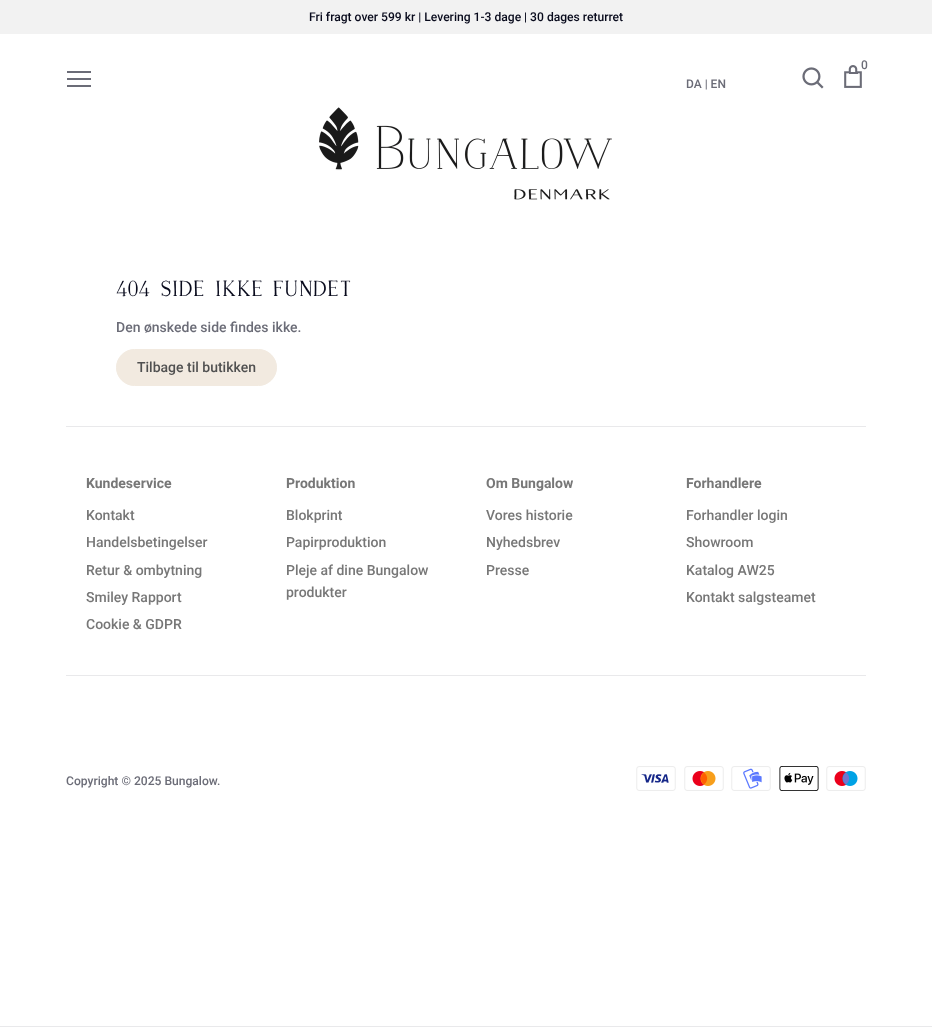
async function draw(canvas) {
  canvas.width = 932
  canvas.height = 1027
  const ctx = canvas.getContext('2d')
  ctx.miterLimit = 4
  ctx.fontKerning = 'normal'
  async function loadImage(src) {
    const img = new Image()
    img.src = src
    await img.decode()
    return img
  }

  ctx.fillStyle = '#fff'
  ctx.fillRect(0, 0, 932, 1027)
  ctx.fillStyle = '#f2f2f2'
  ctx.fillRect(0, 0, 932, 34)
  ctx.font = '500 12.1px Roboto'
  ctx.fillStyle = '#080a1c'
  ctx.fillText('Fri fragt over 599 kr | Levering 1-3 dage | 30 dages returret', 309, 21)
  ctx.fillStyle = '#6b6c77'
  ctx.fillRect(67, 71, 24, 2)
  ctx.fillRect(67, 78, 24, 2)
  ctx.fillRect(67, 85, 24, 2)
  ctx.drawImage(await loadImage('image0.png'), 844, 65, 18, 23)
  ctx.font = '500 12px Roboto'
  ctx.fillText('0', 861, 69)
  ctx.fillText('DA | EN', 686, 88)
  ctx.drawImage(await loadImage('image1.png'), 802, 67, 22, 22)
  ctx.drawImage(await loadImage('image2.png'), 319, 107, 293, 93)
  ctx.fillStyle = '#e9e9eb'
  ctx.fillRect(0, 1026, 932, 1)
  ctx.font = 'bold 20.5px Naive'
  ctx.fillStyle = '#080a1c'
  ctx.fillText('404 Side ikke fundet', 116, 296)
  ctx.font = '500 14px Roboto'
  ctx.fillStyle = '#6b6c77'
  ctx.fillText('Den ønskede side findes ikke.', 116, 332)
  ctx.fillStyle = '#f2eae0'
  ctx.beginPath()
  ctx.roundRect(116.5, 349.5, 160, 36, 18)
  ctx.fill()
  ctx.strokeStyle = '#f2eae0'
  ctx.stroke()
  ctx.fillStyle = '#505050'
  ctx.fillText('Tilbage til butikken', 137, 372)
  ctx.fillStyle = '#e9e9eb'
  ctx.fillRect(66, 426, 800, 1)
  ctx.font = 'bold 14px Roboto'
  ctx.fillStyle = '#777'
  ctx.fillText('Kundeservice', 86, 488)
  ctx.font = '500 14px Roboto'
  ctx.fillText('Kontakt', 86, 520)
  ctx.fillText('Handelsbetingelser', 86, 547)
  ctx.fillText('Retur & ombytning', 86, 575)
  ctx.fillText('Smiley Rapport', 86, 602)
  ctx.fillText('Cookie & GDPR', 86, 629)
  ctx.font = 'bold 14px Roboto'
  ctx.fillText('Produktion', 286, 488)
  ctx.font = '500 14px Roboto'
  ctx.fillText('Blokprint', 286, 520)
  ctx.fillText('Papirproduktion', 286, 547)
  ctx.fillText('Pleje af dine Bungalow', 286, 575)
  ctx.fillText('produkter', 286, 597)
  ctx.font = 'bold 14px Roboto'
  ctx.fillText('Om Bungalow', 486, 488)
  ctx.font = '500 14px Roboto'
  ctx.fillText('Vores historie', 486, 520)
  ctx.fillText('Nyhedsbrev', 486, 547)
  ctx.fillText('Presse', 486, 575)
  ctx.font = 'bold 14px Roboto'
  ctx.fillText('Forhandlere', 686, 488)
  ctx.font = '500 14px Roboto'
  ctx.fillText('Forhandler login', 686, 520)
  ctx.fillText('Showroom', 686, 547)
  ctx.fillText('Katalog AW25', 686, 575)
  ctx.fillText('Kontakt salgsteamet', 686, 602)
  ctx.fillStyle = '#e9e9eb'
  ctx.fillRect(66, 675, 800, 1)
  ctx.font = '500 12.1px Roboto'
  ctx.fillStyle = '#6b6c77'
  ctx.fillText('Copyright © 2025 Bungalow', 66, 785)
  ctx.fillText('.', 217, 785)
  ctx.drawImage(await loadImage('image3.png'), 636, 766, 40, 25)
  ctx.drawImage(await loadImage('image4.png'), 684, 766, 40, 25)
  ctx.drawImage(await loadImage('image5.png'), 731, 766, 40, 25)
  ctx.drawImage(await loadImage('image6.png'), 779, 766, 40, 25)
  ctx.drawImage(await loadImage('image7.png'), 826, 766, 40, 25)
}

draw(document.querySelector('canvas'))
